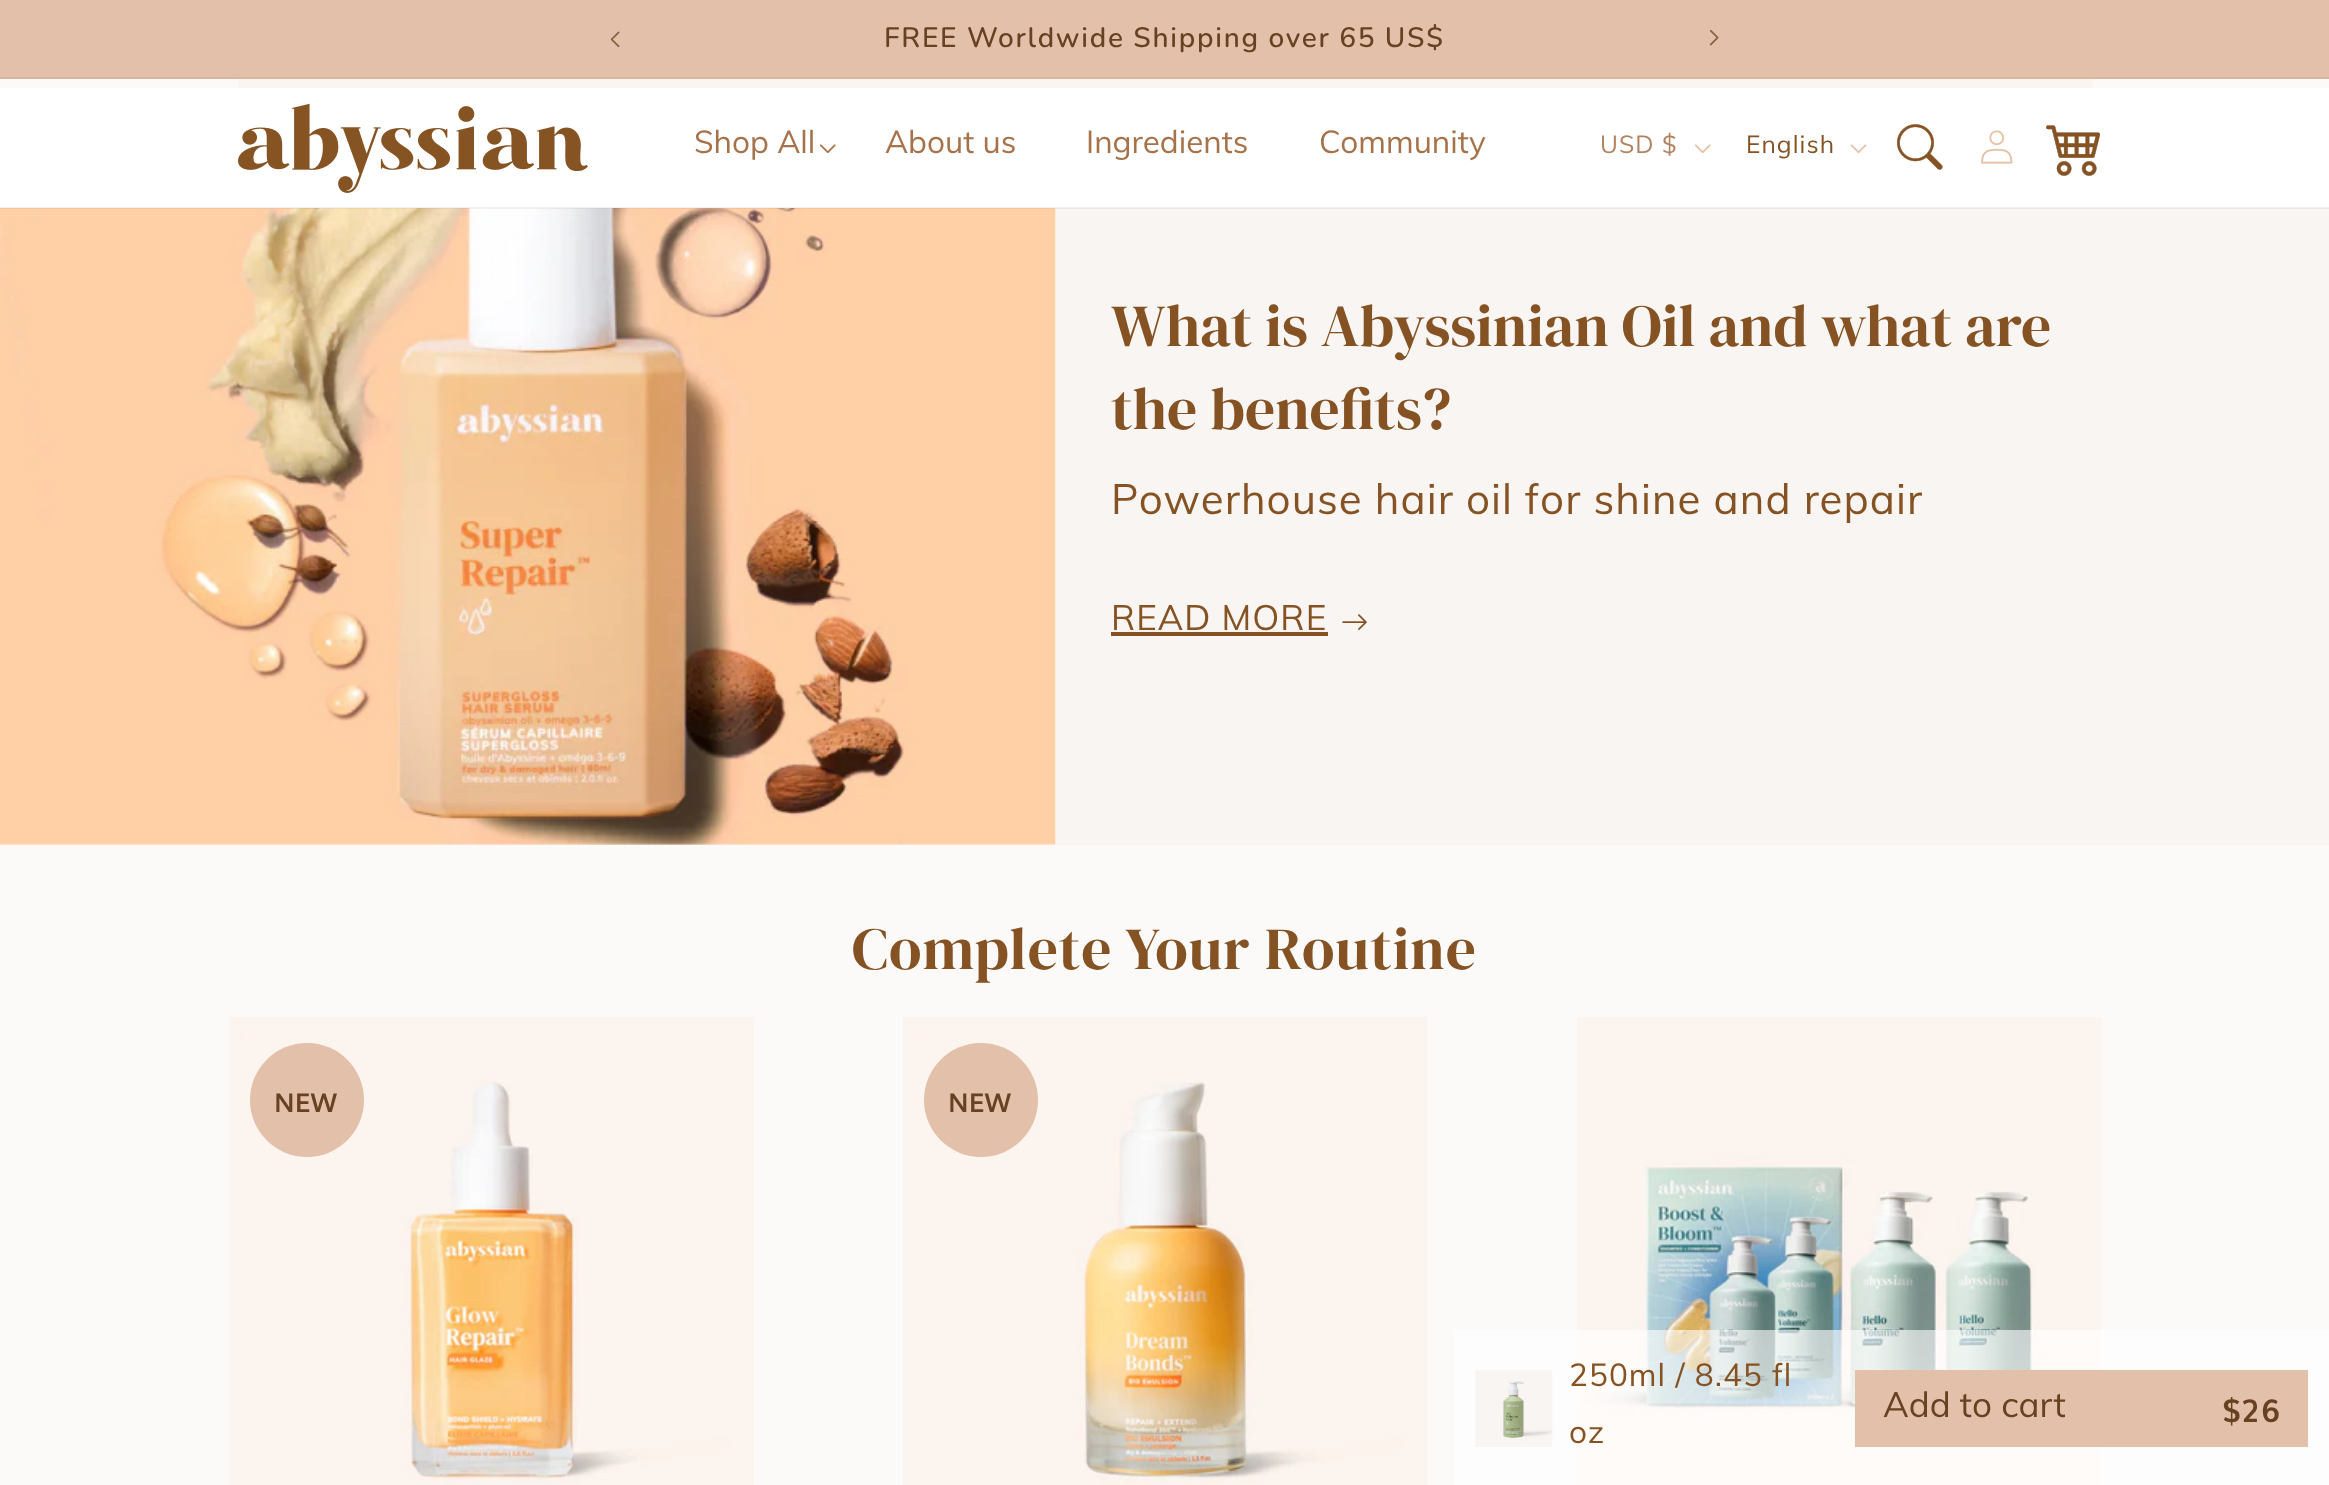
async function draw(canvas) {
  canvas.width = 2329
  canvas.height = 1485
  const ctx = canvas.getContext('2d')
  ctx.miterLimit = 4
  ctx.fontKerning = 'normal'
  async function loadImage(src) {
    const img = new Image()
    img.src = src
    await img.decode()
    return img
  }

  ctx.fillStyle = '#fcfaf9'
  ctx.fillRect(0, 0, 2329, 1485)
  ctx.fillStyle = '#e3c0a9'
  ctx.fillRect(0, 0, 2329, 77)
  ctx.fillStyle = '#d9b69e'
  ctx.fillRect(0, 77, 2329, 2)
  ctx.drawImage(await loadImage('image0.png'), 610, 31, 10, 16)
  ctx.letterSpacing = '1.75px'
  ctx.wordSpacing = '-0.5px'
  ctx.font = '500 28px Nunito'
  ctx.fillStyle = '#674122'
  ctx.fillText('FREE Worldwide Shipping over 65 US$', 884, 47)
  ctx.drawImage(await loadImage('image1.png'), 1709, 30, 10, 16)
  ctx.fillStyle = '#fff'
  ctx.fillRect(0, 88, 2329, 120)
  ctx.fillStyle = '#f9f5f2'
  ctx.fillRect(0, 208, 2329, 637)
  ctx.drawImage(await loadImage('image9.png'), 0, 208, 1056, 637)
  ctx.fillStyle = '#85522314'
  ctx.fillRect(0, 207, 2329, 2)
  ctx.drawImage(await loadImage('image2.png'), 238, 103, 350, 90)
  ctx.letterSpacing = '0px'
  ctx.wordSpacing = '0px'
  ctx.font = '31.5px Muli'
  ctx.fillStyle = '#a6724a'
  ctx.fillText('Shop All', 694, 153)
  ctx.drawImage(await loadImage('image3.png'), 819, 144, 17, 10)
  ctx.fillText('About us', 885, 153)
  ctx.fillText('Ingredients', 1086, 153)
  ctx.fillText('Community', 1319, 153)
  ctx.letterSpacing = '1.05px'
  ctx.font = '24.5px Muli'
  ctx.fillStyle = '#b18461'
  ctx.fillText('USD $', 1600, 153)
  ctx.drawImage(await loadImage('image4.png'), 1695, 144, 16, 9)
  ctx.fillStyle = '#855223'
  ctx.fillText('English', 1746, 153)
  ctx.drawImage(await loadImage('image5.png'), 1850, 144, 17, 9)
  ctx.drawImage(await loadImage('image6.png'), 1897, 124, 46, 46)
  ctx.drawImage(await loadImage('image7.png'), 1981, 130, 32, 34)
  ctx.drawImage(await loadImage('image8.png'), 2046, 125, 55, 51)
  ctx.fillStyle = '#faf5f0'
  ctx.fillRect(238, 79, 1855, 9)
  ctx.letterSpacing = '0px'
  ctx.font = '59.5px DM Serif Display'
  ctx.fillStyle = '#855223'
  ctx.fillText('What is Abyssinian Oil and what are', 1111, 346)
  ctx.fillText('the benefits?', 1111, 429)
  ctx.letterSpacing = '1.05px'
  ctx.font = '42px Muli'
  ctx.fillText('Powerhouse hair oil for shine and repair', 1111, 514)
  ctx.font = '35px Muli'
  ctx.fillText('READ MORE', 1111, 630)
  ctx.fillRect(1111, 632, 217, 4)
  ctx.drawImage(await loadImage('image10.png'), 1342, 614, 25, 16)
  ctx.font = '59.5px DM Serif Display'
  ctx.fillText('Complete Your Routine', 852, 969)
  ctx.drawImage(await loadImage('image11.png'), 229, 1017, 525, 468)
  ctx.fillStyle = '#e3c0a9'
  ctx.beginPath()
  ctx.arc(307, 1100, 57, 0, 2 * Math.PI)
  ctx.fill()
  ctx.letterSpacing = '0px'
  ctx.font = 'bold 26px Muli'
  ctx.fillStyle = '#674122'
  ctx.fillText('NEW', 274, 1112)
  ctx.drawImage(await loadImage('image12.png'), 903, 1017, 525, 468)
  ctx.fillStyle = '#e3c0a9'
  ctx.beginPath()
  ctx.arc(981, 1100, 57, 0, 2 * Math.PI)
  ctx.fill()
  ctx.fillStyle = '#674122'
  ctx.fillText('NEW', 948, 1112)
  ctx.drawImage(await loadImage('image13.png'), 1577, 1017, 525, 468)
  ctx.fillStyle = '#ffffff99'
  ctx.fillRect(1454, 1330, 875, 155)
  ctx.drawImage(await loadImage('image14.png'), 1475, 1370, 78, 77)
  ctx.letterSpacing = '1.05px'
  ctx.font = '31.5px Muli'
  ctx.fillStyle = '#855223'
  ctx.fillText('250ml / 8.45 fl', 1569, 1386)
  ctx.fillText('oz', 1569, 1443)
  ctx.fillStyle = '#e3c0a9'
  ctx.fillRect(1855, 1370, 453, 77)
  ctx.letterSpacing = '0px'
  ctx.font = '35px Muli'
  ctx.fillStyle = '#674122'
  ctx.fillText('Add to cart', 1883, 1417)
  ctx.font = 'bold 31.5px Muli'
  ctx.fillText('$26', 2222, 1422)
}

draw(document.querySelector('canvas'))
